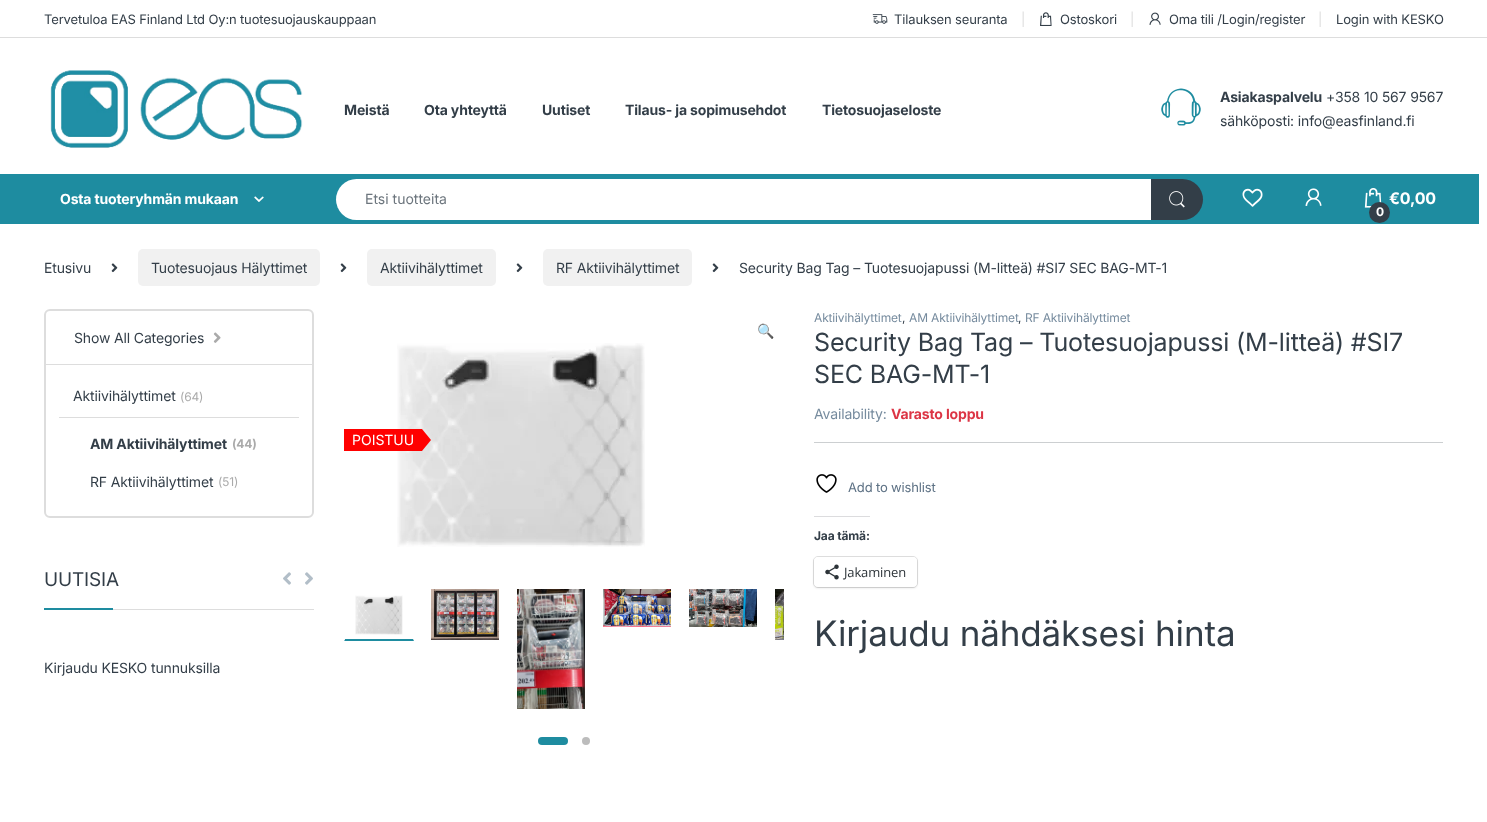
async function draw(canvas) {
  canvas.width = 1487
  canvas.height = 822
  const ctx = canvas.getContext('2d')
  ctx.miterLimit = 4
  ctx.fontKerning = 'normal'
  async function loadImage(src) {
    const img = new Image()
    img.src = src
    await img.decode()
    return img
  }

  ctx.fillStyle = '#fff'
  ctx.fillRect(0, 0, 1487, 822)
  ctx.fillStyle = '#ddd'
  ctx.fillRect(0, 37, 1487, 1)
  ctx.letterSpacing = '-0.15px'
  ctx.font = '13px Inter'
  ctx.fillStyle = '#333e48'
  ctx.fillText('Tervetuloa EAS Finland Ltd Oy:n tuotesuojauskauppaan', 44, 24)
  ctx.drawImage(await loadImage('image0.png'), 872, 14, 16, 10)
  ctx.fillText('Tilauksen seuranta', 894, 24)
  ctx.fillStyle = '#ddd'
  ctx.fillText('|', 1021, 24)
  ctx.drawImage(await loadImage('image1.png'), 1040, 12, 12, 14)
  ctx.fillStyle = '#333e48'
  ctx.fillText('Ostoskori', 1060, 24)
  ctx.fillStyle = '#ddd'
  ctx.fillText('|', 1130, 24)
  ctx.drawImage(await loadImage('image2.png'), 1149, 12, 12, 13)
  ctx.fillStyle = '#333e48'
  ctx.fillText('Oma tili /Login/register', 1169, 24)
  ctx.fillStyle = '#ddd'
  ctx.fillText('|', 1318, 24)
  ctx.fillStyle = '#333e48'
  ctx.fillText('Login with KESKO', 1336, 24)
  ctx.drawImage(await loadImage('image3.png'), 50, 70, 253, 78)
  ctx.font = 'bold 14px Inter'
  ctx.fillText('Meistä', 344, 115)
  ctx.fillText('Ota yhteyttä', 424, 115)
  ctx.fillText('Uutiset', 542, 115)
  ctx.fillText('Tilaus- ja sopimusehdot', 625, 115)
  ctx.fillText('Tietosuojaseloste', 822, 115)
  ctx.drawImage(await loadImage('image4.png'), 1161, 88, 40, 38)
  ctx.fillText('Asiakaspalvelu', 1220, 102)
  ctx.font = '14px Inter'
  ctx.fillText('+358 10 567 9567', 1326, 102)
  ctx.fillText('sähköposti: info@easfinland.fi', 1220, 126)
  ctx.fillStyle = '#1e8ca0'
  ctx.fillRect(0, 174, 1479, 50)
  ctx.font = 'bold 14px Inter'
  ctx.fillStyle = '#fff'
  ctx.fillText('Osta tuoteryhmän mukaan', 60, 204)
  ctx.drawImage(await loadImage('image5.png'), 254, 196, 10, 6)
  ctx.beginPath()
  ctx.roundRect(336, 179, 816, 41, [20.5, 0, 0, 20.5])
  ctx.fill()
  ctx.letterSpacing = '0px'
  ctx.font = '14px Inter'
  ctx.fillStyle = '#6c757d'
  ctx.fillText('Etsi tuotteita', 365, 204)
  ctx.fillStyle = '#333e48'
  ctx.beginPath()
  ctx.roundRect(1151, 179, 52, 41, [0, 20.5, 20.5, 0])
  ctx.fill()
  ctx.drawImage(await loadImage('image6.png'), 1169, 191, 16, 17)
  ctx.drawImage(await loadImage('image7.png'), 1242, 188, 21, 19)
  ctx.drawImage(await loadImage('image8.png'), 1305, 188, 17, 18)
  ctx.drawImage(await loadImage('image9.png'), 1364, 188, 18, 20)
  ctx.letterSpacing = '-0.15px'
  ctx.font = 'bold 16px Inter'
  ctx.fillStyle = '#fff'
  ctx.fillText('€0,00', 1389, 204)
  ctx.fillStyle = '#333e48'
  ctx.beginPath()
  ctx.arc(1379.5, 212.5, 10.5, 0, 2 * Math.PI)
  ctx.fill()
  ctx.font = 'bold 12px Inter'
  ctx.fillStyle = '#fff'
  ctx.fillText('0', 1376, 216)
  ctx.font = '14px Inter'
  ctx.fillStyle = '#333e48'
  ctx.fillText('Etusivu', 44, 273)
  ctx.drawImage(await loadImage('image10.png'), 111, 263, 7, 10)
  ctx.fillStyle = '#f1f1f1'
  ctx.beginPath()
  ctx.roundRect(138, 249, 182, 37, 5)
  ctx.fill()
  ctx.fillStyle = '#333e48'
  ctx.fillText('Tuotesuojaus Hälyttimet', 151, 273)
  ctx.drawImage(await loadImage('image10.png'), 340, 263, 7, 10)
  ctx.fillStyle = '#f1f1f1'
  ctx.beginPath()
  ctx.roundRect(367, 249, 129, 37, 5)
  ctx.fill()
  ctx.fillStyle = '#333e48'
  ctx.fillText('Aktiivihälyttimet', 380, 273)
  ctx.drawImage(await loadImage('image10.png'), 516, 263, 7, 10)
  ctx.fillStyle = '#f1f1f1'
  ctx.beginPath()
  ctx.roundRect(543, 249, 149, 37, 5)
  ctx.fill()
  ctx.fillStyle = '#333e48'
  ctx.fillText('RF Aktiivihälyttimet', 556, 273)
  ctx.drawImage(await loadImage('image10.png'), 712, 263, 7, 10)
  ctx.fillText('Security Bag Tag – Tuotesuojapussi (M-litteä) #SI7 SEC BAG-MT-1', 739, 273)
  ctx.beginPath()
  ctx.roundRect(45, 310, 268, 207, 5)
  ctx.strokeStyle = '#ddd'
  ctx.lineWidth = 2
  ctx.stroke()
  ctx.fillStyle = '#ddd'
  ctx.fillRect(46, 364, 266, 1)
  ctx.fillStyle = '#333e48'
  ctx.fillText('Show All Categories', 74, 343)
  ctx.drawImage(await loadImage('image11.png'), 213, 332, 8, 11)
  ctx.fillText('Aktiivihälyttimet', 73, 401)
  ctx.font = '12px Inter'
  ctx.fillStyle = '#aaa'
  ctx.fillText('(64)', 180, 401)
  ctx.fillStyle = '#ddd'
  ctx.fillRect(59, 417, 240, 1)
  ctx.font = 'bold 14px Inter'
  ctx.fillStyle = '#333e48'
  ctx.fillText('AM Aktiivihälyttimet', 90, 449)
  ctx.font = 'bold 12px Inter'
  ctx.fillStyle = '#aaa'
  ctx.fillText('(44)', 232, 448)
  ctx.font = '14px Inter'
  ctx.fillStyle = '#333e48'
  ctx.fillText('RF Aktiivihälyttimet', 90, 487)
  ctx.font = '12px Inter'
  ctx.fillStyle = '#aaa'
  ctx.fillText('(51)', 218, 486)
  ctx.fillStyle = '#ddd'
  ctx.fillRect(113, 609, 201, 1)
  ctx.font = '19px Inter'
  ctx.fillStyle = '#333e48'
  ctx.fillText('UUTISIA', 44, 586)
  ctx.fillStyle = '#1e8ca0'
  ctx.fillRect(44, 608, 69, 2)
  ctx.drawImage(await loadImage('image12.png'), 283, 572, 8, 13)
  ctx.drawImage(await loadImage('image13.png'), 305, 572, 8, 13)
  ctx.font = '14px Inter'
  ctx.fillStyle = '#333e48'
  ctx.fillText('Kirjaudu KESKO tunnuksilla', 44, 673)
  ctx.font = '14px Noto Color Emoji'
  ctx.fillText('🔍', 757, 336)
  ctx.drawImage(await loadImage('image14.png'), 397, 343, 248, 204)
  ctx.fillStyle = '#f00'
  ctx.fillRect(344, 429, 78, 22)
  ctx.letterSpacing = '0px'
  ctx.font = '14px Inter'
  ctx.fillStyle = '#fff'
  ctx.fillText('POISTUU', 352, 445)
  ctx.fillStyle = '#f00'
  ctx.beginPath()
  ctx.moveTo(422, 429)
  ctx.lineTo(422, 451)
  ctx.lineTo(431, 440)
  ctx.closePath()
  ctx.fill()
  ctx.fillStyle = '#1e8ca0'
  ctx.beginPath()
  ctx.moveTo(414, 641)
  ctx.lineTo(344, 641)
  ctx.lineTo(345, 639)
  ctx.lineTo(413, 639)
  ctx.closePath()
  ctx.fill()
  ctx.fillStyle = '#fff'
  ctx.beginPath()
  ctx.moveTo(344, 641)
  ctx.lineTo(344, 588)
  ctx.lineTo(345, 589)
  ctx.lineTo(345, 639)
  ctx.closePath()
  ctx.fill()
  ctx.drawImage(await loadImage('image15.png'), 355, 595, 48, 40)
  ctx.drawImage(await loadImage('image16.png'), 431, 589, 68, 51)
  ctx.drawImage(await loadImage('image17.png'), 517, 589, 68, 120)
  ctx.drawImage(await loadImage('image18.png'), 603, 589, 68, 38)
  ctx.drawImage(await loadImage('image19.png'), 689, 589, 68, 38)
  ctx.drawImage(await loadImage('image20.png'), 775, 589, 9, 51)
  ctx.fillStyle = '#1e8ca0'
  ctx.beginPath()
  ctx.roundRect(538, 737, 30, 8, 4)
  ctx.fill()
  ctx.fillStyle = '#bcbcbc'
  ctx.beginPath()
  ctx.arc(586, 741, 4, 0, 2 * Math.PI)
  ctx.fill()
  ctx.letterSpacing = '-0.15px'
  ctx.font = '12px Inter'
  ctx.fillStyle = '#768b9e'
  ctx.fillText('Aktiivihälyttimet', 814, 322)
  ctx.fillStyle = '#333e48'
  ctx.fillText(',', 902, 322)
  ctx.fillStyle = '#768b9e'
  ctx.fillText('AM Aktiivihälyttimet', 909, 322)
  ctx.fillStyle = '#333e48'
  ctx.fillText(',', 1018, 322)
  ctx.fillStyle = '#768b9e'
  ctx.fillText('RF Aktiivihälyttimet', 1025, 322)
  ctx.font = '25px Inter'
  ctx.fillStyle = '#333e48'
  ctx.fillText('Security Bag Tag – Tuotesuojapussi (M-litteä) #SI7', 814, 351)
  ctx.fillText('SEC BAG-MT-1', 814, 383)
  ctx.font = '14px Inter'
  ctx.fillStyle = '#768b9e'
  ctx.fillText('Availability:', 814, 419)
  ctx.font = 'bold 14px Inter'
  ctx.fillStyle = '#dc3545'
  ctx.fillText('Varasto loppu', 891, 419)
  ctx.fillStyle = '#cccfd1'
  ctx.fillRect(814, 442, 629, 1)
  ctx.drawImage(await loadImage('image21.png'), 816, 474, 21, 19)
  ctx.font = '13px Inter'
  ctx.fillStyle = '#5d7184'
  ctx.fillText('Add to wishlist', 848, 492)
  ctx.fillStyle = '#dcdcde'
  ctx.fillRect(814, 516, 56, 1)
  ctx.font = 'bold 12px Inter'
  ctx.fillStyle = '#333e48'
  ctx.fillText('Jaa tämä:', 814, 540)
  ctx.beginPath()
  ctx.roundRect(813.5, 556.5, 104, 31, 4.5)
  ctx.strokeStyle = '#e0e0e0'
  ctx.lineWidth = 1
  ctx.stroke()
  ctx.fillStyle = '#0000001f'
  ctx.filter = 'blur(1px)'
  ctx.beginPath()
  ctx.roundRect(814, 558, 103, 30, 4)
  ctx.fill()
  ctx.filter = 'none'
  ctx.fillStyle = '#fff'
  ctx.beginPath()
  ctx.roundRect(814, 557, 103, 30, 4)
  ctx.fill()
  ctx.drawImage(await loadImage('image22.png'), 825, 564, 14, 16)
  ctx.font = '13px Open Sans'
  ctx.fillStyle = '#2c3338'
  ctx.fillText('Jakaminen', 844, 577)
  ctx.font = '35px Inter'
  ctx.fillStyle = '#333e48'
  ctx.fillText('Kirjaudu nähdäksesi hinta', 814, 646)
}

draw(document.querySelector('canvas'))
